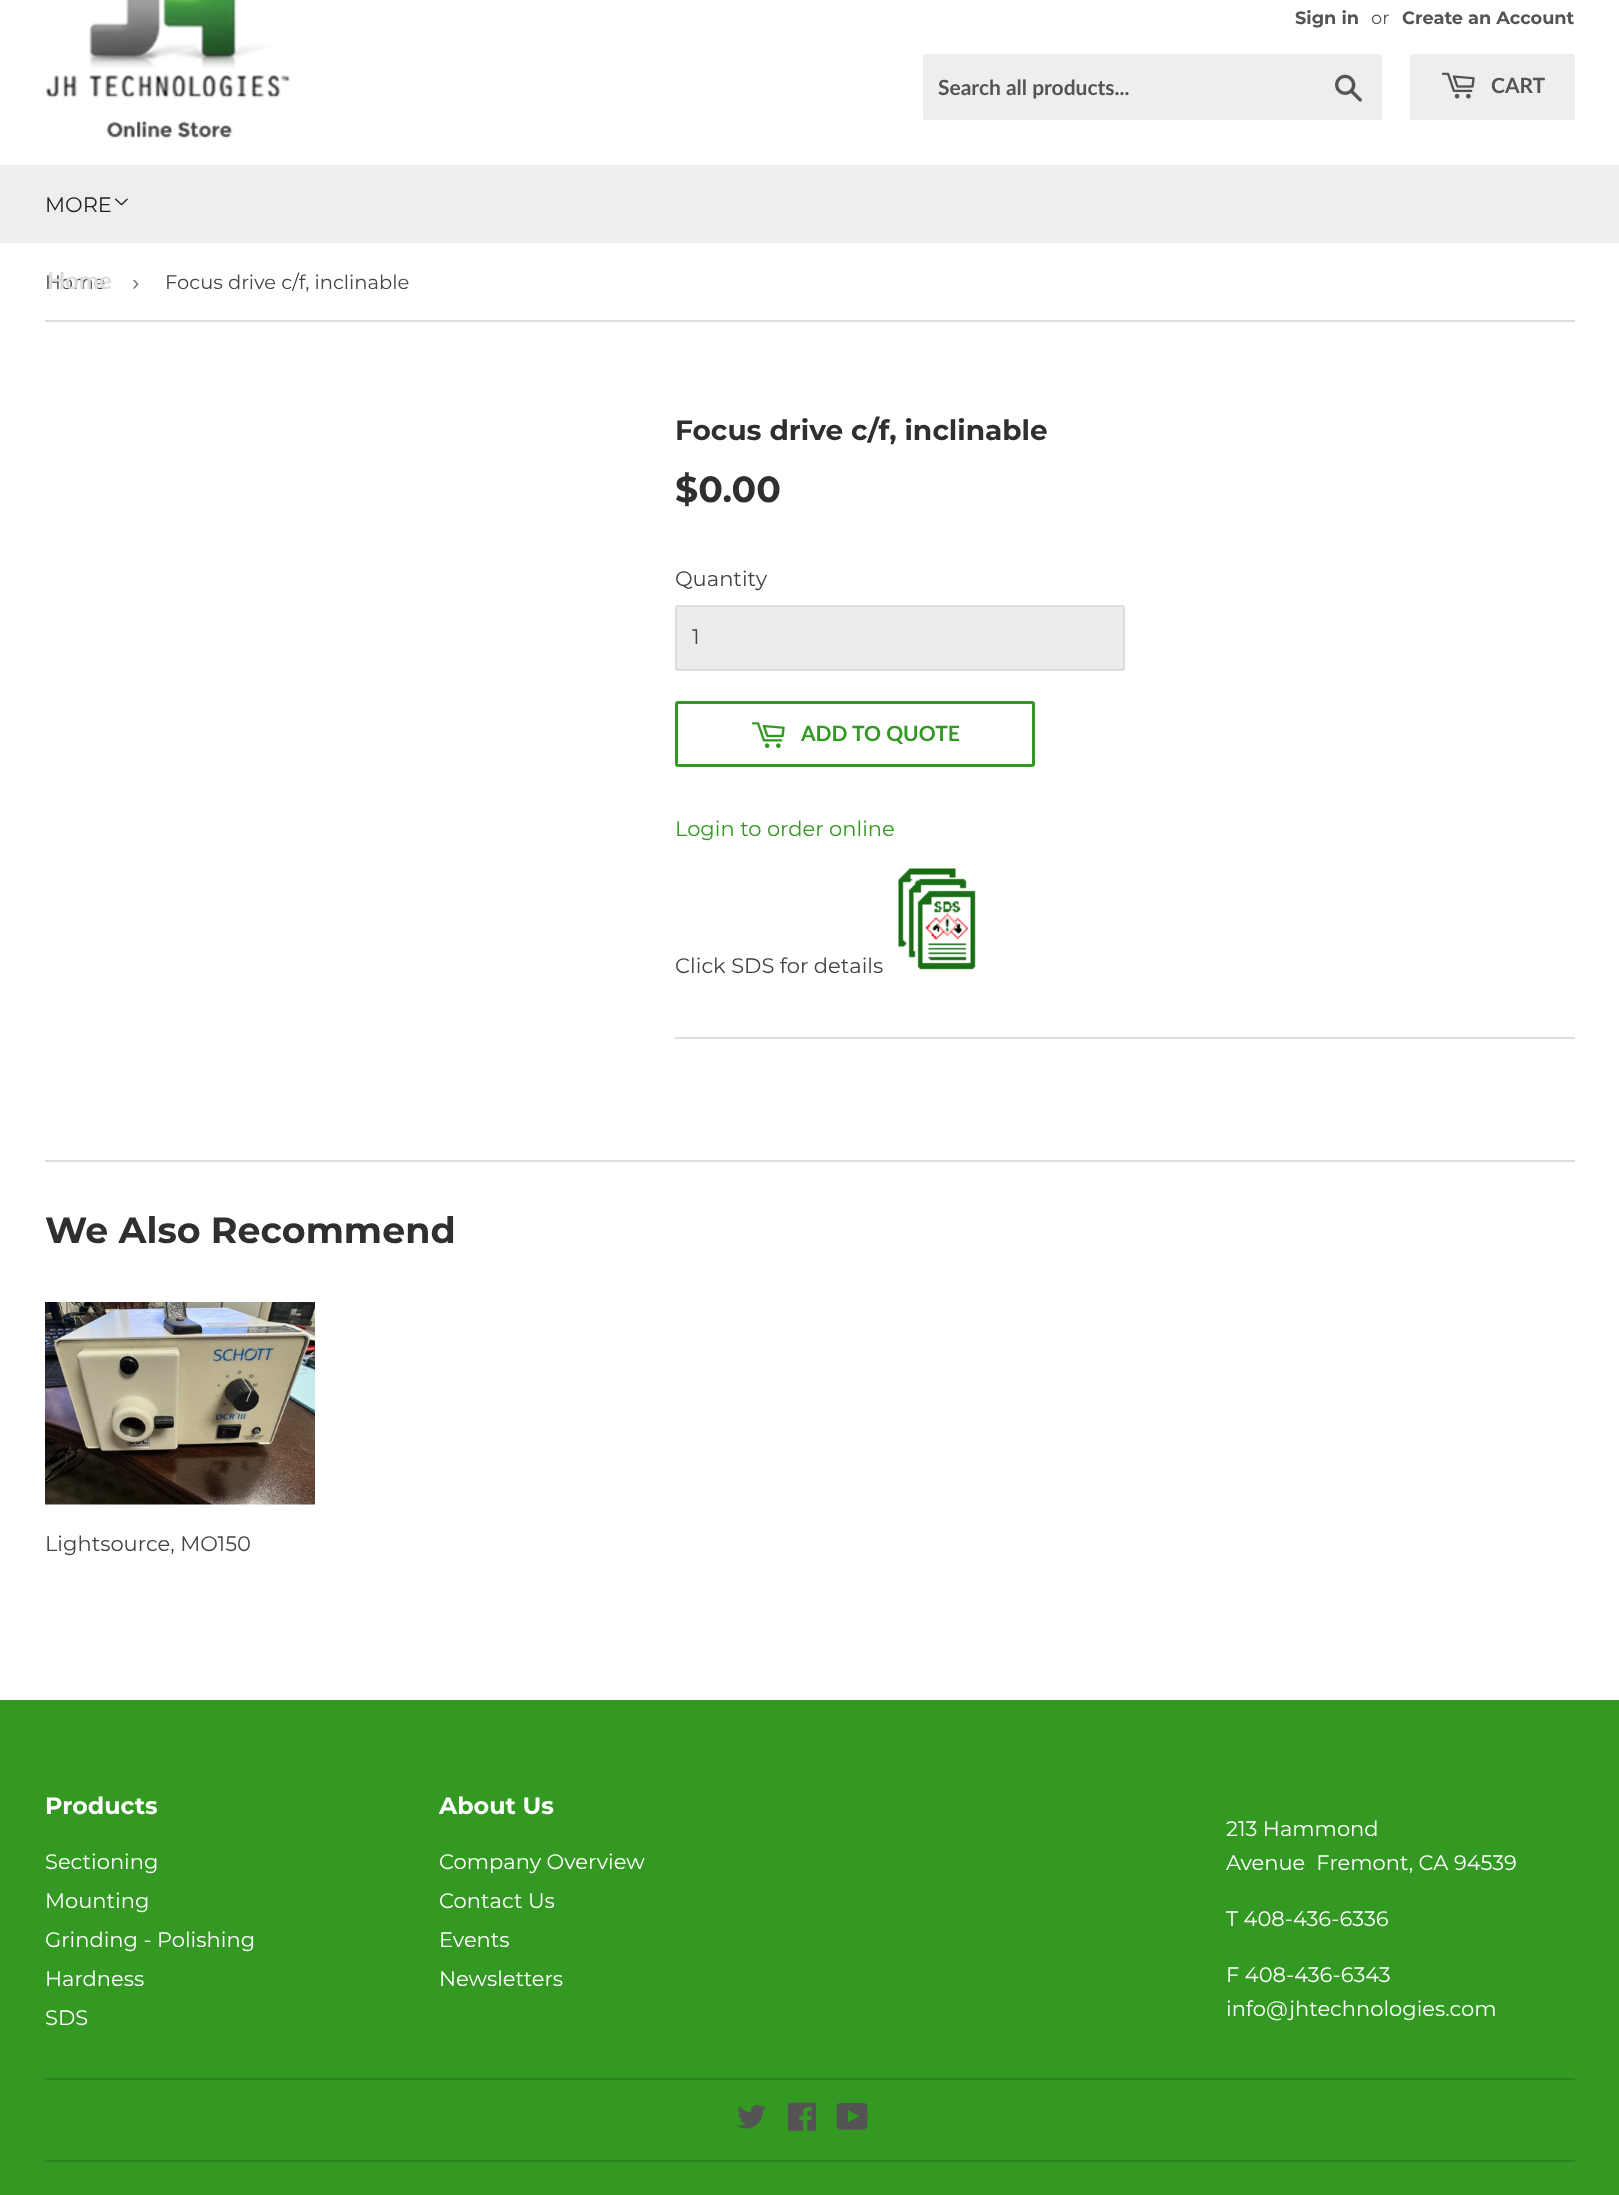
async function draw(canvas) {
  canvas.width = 1619
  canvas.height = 2195
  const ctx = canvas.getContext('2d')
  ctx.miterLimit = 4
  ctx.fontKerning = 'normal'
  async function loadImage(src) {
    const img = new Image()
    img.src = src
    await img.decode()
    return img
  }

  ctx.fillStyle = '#fff'
  ctx.fillRect(0, 0, 1619, 2195)
  ctx.drawImage(await loadImage('image0.png'), 46, 0, 244, 139)
  ctx.font = 'bold 17.75px Montserrat'
  ctx.fillStyle = '#545454'
  ctx.fillText('Sign in', 1295, 24)
  ctx.font = '17.75px Montserrat'
  ctx.fillText('or', 1371, 24)
  ctx.font = 'bold 17.75px Montserrat'
  ctx.fillText('Create an Account', 1402, 24)
  ctx.fillStyle = '#eee'
  ctx.beginPath()
  ctx.roundRect(923, 54, 459, 66, 3)
  ctx.fill()
  ctx.font = 'bold 21px Lato'
  ctx.fillStyle = '#545454'
  ctx.fillText('Search all products...', 938, 95)
  ctx.drawImage(await loadImage('image1.png'), 1335, 74, 27, 28)
  ctx.fillStyle = '#eee'
  ctx.beginPath()
  ctx.roundRect(1410, 54, 165, 66, 3)
  ctx.fill()
  ctx.drawImage(await loadImage('image2.png'), 1441, 72, 34, 27)
  ctx.fillStyle = '#545454'
  ctx.fillText('CART', 1491, 93)
  ctx.fillStyle = '#eee'
  ctx.fillRect(0, 165, 1619, 78)
  ctx.font = '21px Montserrat'
  ctx.fillStyle = '#222'
  ctx.fillText('MORE', 45, 212)
  ctx.drawImage(await loadImage('image3.png'), 115, 198, 13, 8)
  ctx.font = '19.5px Montserrat'
  ctx.fillStyle = '#444'
  ctx.fillText('Home', 45, 289)
  ctx.font = 'bold 24px Lato'
  ctx.fillStyle = '#ddd'
  ctx.fillText('Home', 47, 289)
  ctx.fillRect(45, 320, 1530, 2)
  ctx.font = '22px Liberation Sans'
  ctx.fillStyle = '#767676'
  ctx.fillText('›', 132, 290)
  ctx.font = '19.5px Montserrat'
  ctx.fillStyle = '#444'
  ctx.fillText('Focus drive c/f, inclinable', 165, 289)
  ctx.font = 'bold 28px Montserrat'
  ctx.fillStyle = '#2f2f2f'
  ctx.fillText('Focus drive c/f, inclinable', 675, 440)
  ctx.font = 'bold 36.4px Montserrat'
  ctx.fillText('$0.00', 675, 502)
  ctx.font = '21px Montserrat'
  ctx.fillStyle = '#444'
  ctx.fillText('Quantity', 675, 586)
  ctx.fillStyle = '#ececec'
  ctx.beginPath()
  ctx.roundRect(676, 606, 448, 64, 2)
  ctx.fill()
  ctx.strokeStyle = '#ddd'
  ctx.lineWidth = 2
  ctx.stroke()
  ctx.fillStyle = '#444'
  ctx.fillText('1', 692, 644)
  ctx.beginPath()
  ctx.roundRect(676.5, 702.5, 357, 63, 1.5)
  ctx.strokeStyle = '#392'
  ctx.lineWidth = 3
  ctx.stroke()
  ctx.drawImage(await loadImage('image4.png'), 751, 722, 34, 26)
  ctx.font = 'bold 21px Lato'
  ctx.fillStyle = '#392'
  ctx.fillText('ADD TO QUOTE', 801, 741)
  ctx.font = '21px Montserrat'
  ctx.fillText('Login to order online', 675, 836)
  ctx.fillStyle = '#444'
  ctx.fillText('Click SDS for details', 675, 973)
  ctx.drawImage(await loadImage('image5.png'), 898, 868, 78, 102)
  ctx.fillStyle = '#ddd'
  ctx.fillRect(675, 1037, 900, 2)
  ctx.fillRect(45, 1160, 1530, 2)
  ctx.font = 'bold 36.4px Montserrat'
  ctx.fillStyle = '#2f2f2f'
  ctx.fillText('We Also Recommend', 45, 1243)
  ctx.drawImage(await loadImage('image6.png'), 45, 1302, 270, 203)
  ctx.font = '21px Montserrat'
  ctx.fillStyle = '#444'
  ctx.fillText('Lightsource, MO150', 45, 1551)
  ctx.fillStyle = '#392'
  ctx.fillRect(0, 1700, 1619, 495)
  ctx.font = 'bold 23.75px Montserrat'
  ctx.fillStyle = '#fff'
  ctx.fillText('Products', 45, 1814)
  ctx.font = '21px Montserrat'
  ctx.fillText('Sectioning', 45, 1869)
  ctx.fillText('Mounting', 45, 1908)
  ctx.fillText('Grinding - Polishing', 45, 1947)
  ctx.fillText('Hardness', 45, 1986)
  ctx.fillText('SDS', 45, 2025)
  ctx.font = 'bold 23.75px Montserrat'
  ctx.fillText('About Us', 439, 1814)
  ctx.font = '21px Montserrat'
  ctx.fillText('Company Overview', 439, 1869)
  ctx.fillText('Contact Us', 439, 1908)
  ctx.fillText('Events', 439, 1947)
  ctx.fillText('Newsletters', 439, 1986)
  ctx.fillText('213 Hammond', 1226, 1836)
  ctx.fillText('Avenue  Fremont, CA 94539', 1226, 1870)
  ctx.fillText('T 408-436-6336', 1226, 1926)
  ctx.fillText('F 408-436-6343', 1226, 1982)
  ctx.fillText('info@jhtechnologies.com', 1226, 2016)
  ctx.fillStyle = '#2c841d'
  ctx.fillRect(45, 2078, 1530, 2)
  ctx.drawImage(await loadImage('image7.png'), 737, 2105, 29, 24)
  ctx.drawImage(await loadImage('image8.png'), 788, 2102, 29, 29)
  ctx.drawImage(await loadImage('image9.png'), 836, 2102, 32, 28)
  ctx.fillRect(45, 2160, 1530, 2)
}

draw(document.querySelector('canvas'))
